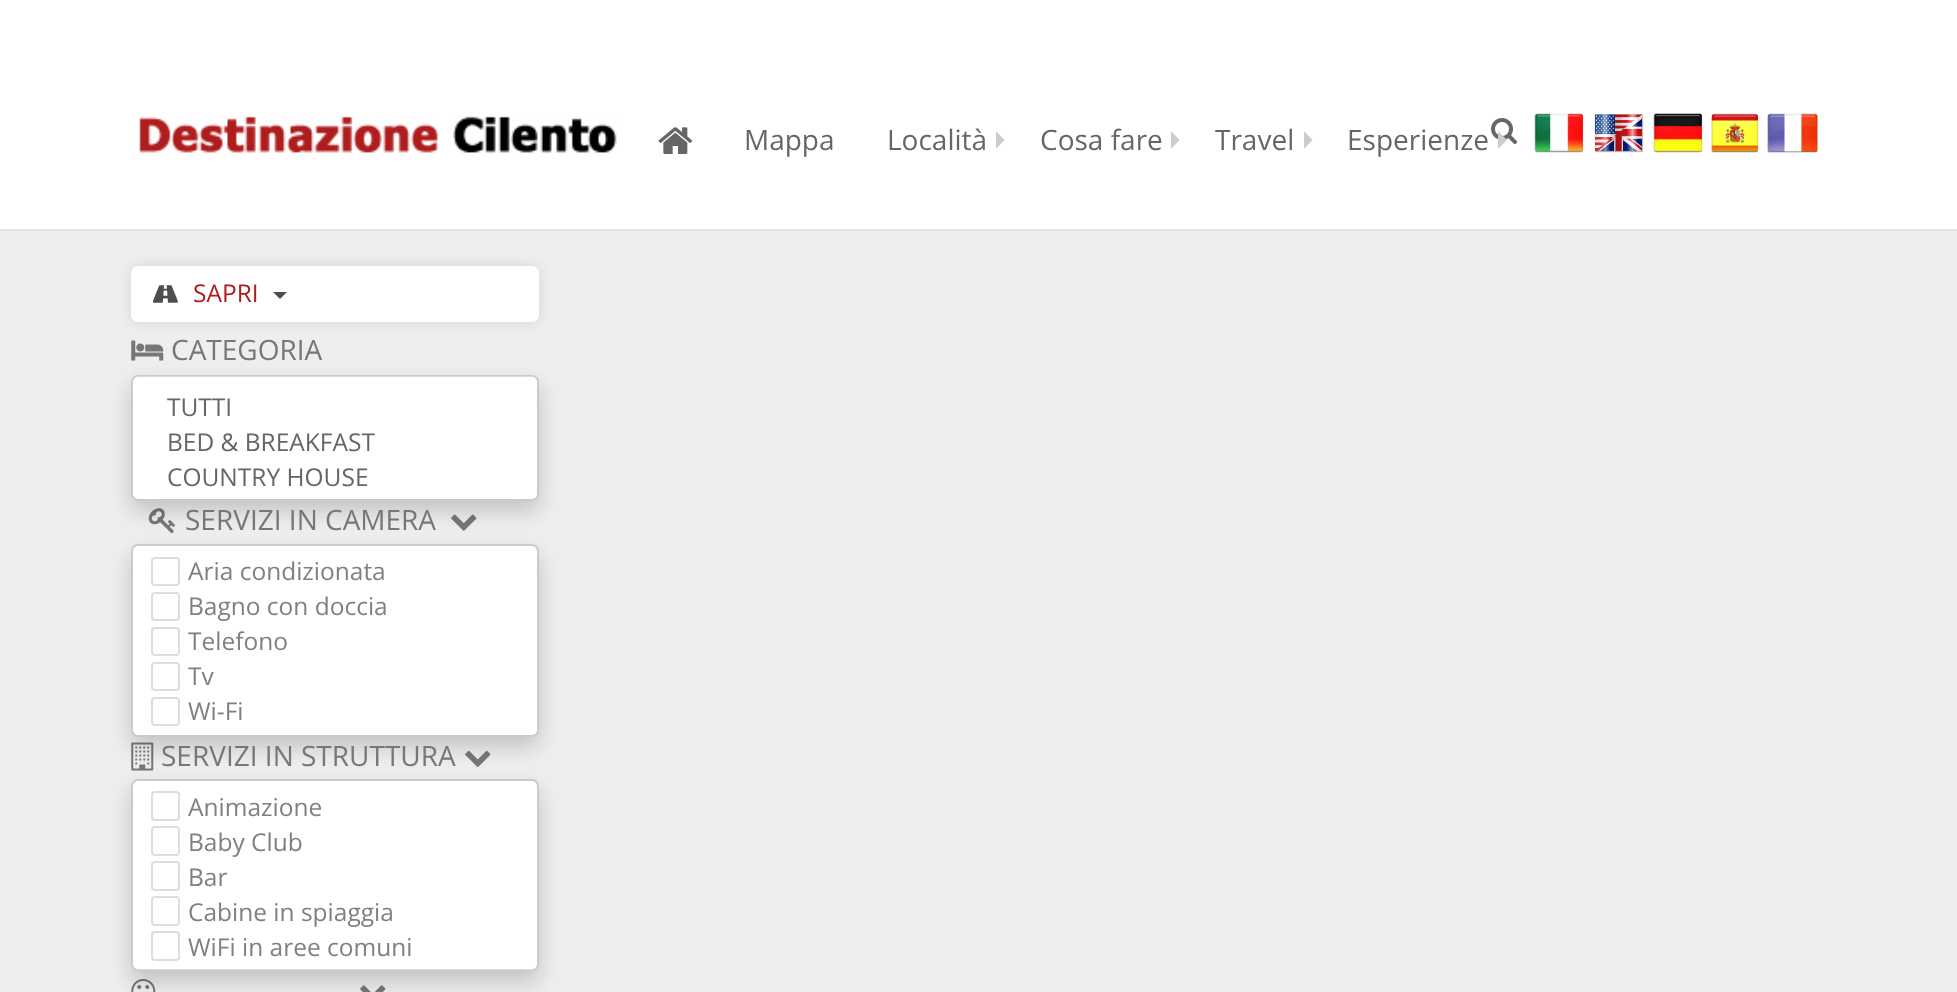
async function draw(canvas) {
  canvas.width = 1957
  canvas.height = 992
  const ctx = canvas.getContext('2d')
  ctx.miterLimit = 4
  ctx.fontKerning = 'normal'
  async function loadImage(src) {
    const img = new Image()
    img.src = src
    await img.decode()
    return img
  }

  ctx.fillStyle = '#fff'
  ctx.fillRect(0, 0, 1957, 992)
  ctx.drawImage(await loadImage('image0.png'), 139, 116, 478, 37)
  ctx.drawImage(await loadImage('image1.png'), 658, 127, 35, 27)
  ctx.font = '28px Open Sans'
  ctx.fillStyle = '#666'
  ctx.fillText('Mappa', 744, 150)
  ctx.fillText('Località', 887, 150)
  ctx.fillStyle = '#ccc'
  ctx.beginPath()
  ctx.moveTo(996, 149)
  ctx.lineTo(996, 131)
  ctx.lineTo(1004.5, 140)
  ctx.closePath()
  ctx.fill()
  ctx.fillStyle = '#666'
  ctx.fillText('Cosa fare', 1040, 150)
  ctx.fillStyle = '#ccc'
  ctx.beginPath()
  ctx.moveTo(1171, 149)
  ctx.lineTo(1171, 131)
  ctx.lineTo(1179.5, 140)
  ctx.closePath()
  ctx.fill()
  ctx.fillStyle = '#666'
  ctx.fillText('Travel', 1215, 150)
  ctx.fillStyle = '#ccc'
  ctx.beginPath()
  ctx.moveTo(1304, 149)
  ctx.lineTo(1304, 131)
  ctx.lineTo(1312.5, 140)
  ctx.closePath()
  ctx.fill()
  ctx.fillStyle = '#666'
  ctx.fillText('Esperienze', 1347, 150)
  ctx.drawImage(await loadImage('image2.png'), 1491, 118, 26, 26)
  ctx.fillStyle = '#ccc'
  ctx.beginPath()
  ctx.moveTo(1498, 149)
  ctx.lineTo(1498, 131)
  ctx.lineTo(1507, 140)
  ctx.closePath()
  ctx.fill()
  ctx.drawImage(await loadImage('image3.png'), 1534, 113, 50, 40)
  ctx.drawImage(await loadImage('image4.png'), 1594, 114, 50, 39)
  ctx.drawImage(await loadImage('image5.png'), 1653, 113, 50, 40)
  ctx.drawImage(await loadImage('image6.png'), 1711, 113, 48, 40)
  ctx.drawImage(await loadImage('image7.png'), 1767, 113, 51, 40)
  ctx.fillStyle = '#eee'
  ctx.fillRect(0, 231, 1957, 761)
  ctx.fillStyle = '#e5e5e5'
  ctx.fillRect(0, 229, 1957, 2)
  ctx.fillStyle = '#0000001a'
  ctx.filter = 'blur(7px)'
  ctx.beginPath()
  ctx.roundRect(131, 266, 408, 56, 7)
  ctx.fill()
  ctx.filter = 'none'
  ctx.fillStyle = '#fff'
  ctx.beginPath()
  ctx.roundRect(131, 266, 408, 56, 7)
  ctx.fill()
  ctx.drawImage(await loadImage('image8.png'), 152, 285, 26, 18)
  ctx.font = '24.5px Open Sans'
  ctx.fillStyle = '#af1d1e'
  ctx.fillText('SAPRI', 193, 302)
  ctx.fillStyle = '#4d4d4d'
  ctx.beginPath()
  ctx.moveTo(273, 292)
  ctx.lineTo(287, 292)
  ctx.lineTo(280, 299)
  ctx.closePath()
  ctx.fill()
  ctx.drawImage(await loadImage('image9.png'), 131, 340, 33, 21)
  ctx.font = '28px Open Sans'
  ctx.fillStyle = '#777'
  ctx.fillText('CATEGORIA', 171, 360)
  ctx.drawImage(await loadImage('image10.png'), 148, 508, 27, 26)
  ctx.drawImage(await loadImage('image11.png'), 451, 514, 26, 17)
  ctx.save()
  ctx.beginPath()
  ctx.moveTo(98, 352)
  ctx.lineTo(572, 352)
  ctx.lineTo(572, 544)
  ctx.lineTo(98, 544)
  ctx.closePath()
  ctx.moveTo(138, 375)
  ctx.lineTo(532, 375)
  ctx.bezierCurveTo(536, 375, 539, 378, 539, 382)
  ctx.lineTo(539, 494)
  ctx.bezierCurveTo(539, 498, 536, 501, 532, 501)
  ctx.lineTo(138, 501)
  ctx.bezierCurveTo(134, 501, 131, 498, 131, 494)
  ctx.lineTo(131, 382)
  ctx.bezierCurveTo(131, 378, 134, 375, 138, 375)
  ctx.closePath()
  ctx.clip('evenodd')
  ctx.fillStyle = '#0000002e'
  ctx.filter = 'blur(10.5px)'
  ctx.beginPath()
  ctx.roundRect(131, 385, 408, 126, 7)
  ctx.fill()
  ctx.filter = 'none'
  ctx.restore()
  ctx.fillStyle = '#fff'
  ctx.beginPath()
  ctx.roundRect(133, 376, 404, 123, 5)
  ctx.fill()
  ctx.beginPath()
  ctx.roundRect(132, 376, 406, 124, 6)
  ctx.strokeStyle = '#00000026'
  ctx.lineWidth = 2
  ctx.stroke()
  ctx.font = '24.5px Open Sans'
  ctx.fillStyle = '#666'
  ctx.fillText('TUTTI', 167, 416)
  ctx.fillText('BED & BREAKFAST', 167, 451)
  ctx.fillText('COUNTRY HOUSE', 167, 486)
  ctx.font = '28px Open Sans'
  ctx.fillStyle = '#777'
  ctx.fillText('SERVIZI IN CAMERA', 185, 530)
  ctx.drawImage(await loadImage('image12.png'), 131, 742, 23, 29)
  ctx.drawImage(await loadImage('image13.png'), 465, 750, 26, 17)
  ctx.save()
  ctx.beginPath()
  ctx.moveTo(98, 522)
  ctx.lineTo(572, 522)
  ctx.lineTo(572, 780)
  ctx.lineTo(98, 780)
  ctx.closePath()
  ctx.moveTo(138, 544)
  ctx.lineTo(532, 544)
  ctx.bezierCurveTo(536, 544, 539, 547, 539, 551)
  ctx.lineTo(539, 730)
  ctx.bezierCurveTo(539, 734, 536, 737, 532, 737)
  ctx.lineTo(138, 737)
  ctx.bezierCurveTo(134, 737, 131, 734, 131, 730)
  ctx.lineTo(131, 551)
  ctx.bezierCurveTo(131, 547, 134, 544, 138, 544)
  ctx.closePath()
  ctx.clip('evenodd')
  ctx.fillStyle = '#0000002e'
  ctx.filter = 'blur(10.5px)'
  ctx.beginPath()
  ctx.roundRect(131, 555, 408, 192, 7)
  ctx.fill()
  ctx.filter = 'none'
  ctx.restore()
  ctx.fillStyle = '#fff'
  ctx.beginPath()
  ctx.roundRect(133, 546, 404, 189, 5)
  ctx.fill()
  ctx.beginPath()
  ctx.roundRect(132, 545, 406, 191, 6)
  ctx.stroke()
  ctx.beginPath()
  ctx.roundRect(152, 558, 27, 27, 3)
  ctx.strokeStyle = '#ddd'
  ctx.stroke()
  ctx.font = '24.5px Open Sans'
  ctx.fillStyle = '#808080'
  ctx.fillText('Aria condizionata', 188, 580)
  ctx.beginPath()
  ctx.roundRect(152, 593, 27, 27, 3)
  ctx.stroke()
  ctx.fillText('Bagno con doccia', 188, 615)
  ctx.beginPath()
  ctx.roundRect(152, 628, 27, 27, 3)
  ctx.stroke()
  ctx.fillText('Telefono', 188, 650)
  ctx.beginPath()
  ctx.roundRect(152, 663, 27, 27, 3)
  ctx.stroke()
  ctx.fillText('Tv', 188, 685)
  ctx.beginPath()
  ctx.roundRect(152, 698, 27, 27, 3)
  ctx.stroke()
  ctx.fillText('Wi-Fi', 188, 720)
  ctx.font = '28px Open Sans'
  ctx.fillStyle = '#777'
  ctx.fillText('SERVIZI IN STRUTTURA', 161, 766)
  ctx.drawImage(await loadImage('image14.png'), 131, 979, 25, 13)
  ctx.drawImage(await loadImage('image15.png'), 360, 985, 26, 7)
  ctx.save()
  ctx.beginPath()
  ctx.moveTo(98, 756)
  ctx.lineTo(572, 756)
  ctx.lineTo(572, 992)
  ctx.lineTo(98, 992)
  ctx.closePath()
  ctx.moveTo(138, 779)
  ctx.lineTo(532, 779)
  ctx.bezierCurveTo(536, 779, 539, 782, 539, 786)
  ctx.lineTo(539, 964)
  ctx.bezierCurveTo(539, 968, 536, 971, 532, 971)
  ctx.lineTo(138, 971)
  ctx.bezierCurveTo(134, 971, 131, 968, 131, 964)
  ctx.lineTo(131, 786)
  ctx.bezierCurveTo(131, 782, 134, 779, 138, 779)
  ctx.closePath()
  ctx.clip('evenodd')
  ctx.fillStyle = '#0000002e'
  ctx.filter = 'blur(10.5px)'
  ctx.beginPath()
  ctx.roundRect(131, 789, 408, 193, 7)
  ctx.fill()
  ctx.filter = 'none'
  ctx.restore()
  ctx.fillStyle = '#fff'
  ctx.beginPath()
  ctx.roundRect(133, 781, 404, 189, 5)
  ctx.fill()
  ctx.beginPath()
  ctx.roundRect(132, 780, 406, 190, 6)
  ctx.strokeStyle = '#00000026'
  ctx.stroke()
  ctx.beginPath()
  ctx.roundRect(152, 792, 27, 28, 3)
  ctx.strokeStyle = '#ddd'
  ctx.stroke()
  ctx.font = '24.5px Open Sans'
  ctx.fillStyle = '#808080'
  ctx.fillText('Animazione', 188, 816)
  ctx.beginPath()
  ctx.roundRect(152, 827, 27, 28, 3)
  ctx.stroke()
  ctx.fillText('Baby Club', 188, 851)
  ctx.beginPath()
  ctx.roundRect(152, 862, 27, 28, 3)
  ctx.stroke()
  ctx.fillText('Bar', 188, 886)
  ctx.beginPath()
  ctx.roundRect(152, 897, 27, 28, 3)
  ctx.stroke()
  ctx.fillText('Cabine in spiaggia', 188, 921)
  ctx.beginPath()
  ctx.roundRect(152, 932, 27, 28, 3)
  ctx.stroke()
  ctx.fillText('WiFi in aree comuni', 188, 956)
}

draw(document.querySelector('canvas'))
